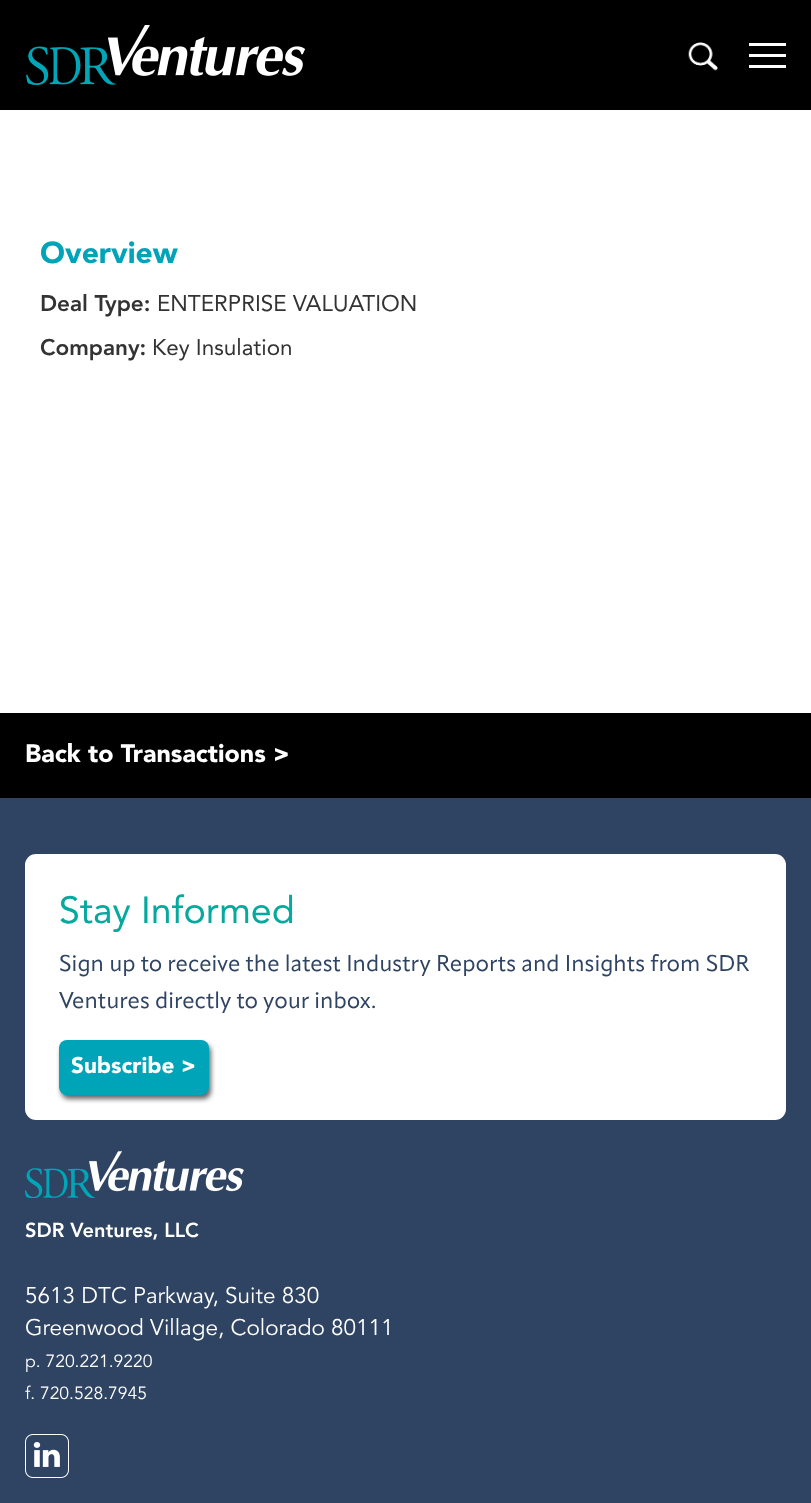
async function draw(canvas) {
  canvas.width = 811
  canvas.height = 1503
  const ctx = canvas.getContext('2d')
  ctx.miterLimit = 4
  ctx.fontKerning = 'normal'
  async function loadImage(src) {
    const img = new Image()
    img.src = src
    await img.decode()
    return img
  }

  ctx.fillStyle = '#fff'
  ctx.fillRect(0, 0, 811, 1503)
  ctx.fillStyle = '#000'
  ctx.fillRect(0, 0, 811, 110)
  ctx.drawImage(await loadImage('image0.png'), 26, 25, 279, 60)
  ctx.drawImage(await loadImage('image1.png'), 688, 42, 30, 29)
  ctx.fillStyle = '#fff'
  ctx.fillRect(749, 43, 37, 3)
  ctx.fillRect(749, 54, 37, 3)
  ctx.fillRect(749, 65, 37, 3)
  ctx.font = '900 30px Avenir'
  ctx.fillStyle = '#00a4b8'
  ctx.fillText('Overview', 40, 263)
  ctx.font = '900 22.5px "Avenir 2"'
  ctx.fillStyle = '#333'
  ctx.fillText('Deal Type:', 40, 311)
  ctx.font = '22.5px Avenir'
  ctx.fillText('ENTERPRISE VALUATION', 157, 311)
  ctx.font = '900 22.5px "Avenir 2"'
  ctx.fillText('Company:', 40, 355)
  ctx.font = '22.5px Avenir'
  ctx.fillText('Key Insulation', 152, 355)
  ctx.fillStyle = '#000'
  ctx.fillRect(0, 713, 811, 85)
  ctx.font = '900 25px Avenir'
  ctx.fillStyle = '#fff'
  ctx.fillText('Back to Transactions >', 25, 762)
  ctx.fillStyle = '#2f4362'
  ctx.fillRect(0, 798, 811, 705)
  ctx.fillStyle = '#fff'
  ctx.beginPath()
  ctx.roundRect(25, 854, 761, 266, 11)
  ctx.fill()
  ctx.font = '37.5px Avenir'
  ctx.fillStyle = '#05a99d'
  ctx.fillText('Stay Informed', 59, 923)
  ctx.font = '22.5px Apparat'
  ctx.fillStyle = '#2f4362'
  ctx.fillText('Sign up to receive the latest Industry Reports and Insights from SDR', 59, 971)
  ctx.fillText('Ventures directly to your inbox.', 59, 1008)
  ctx.fillStyle = '#00000099'
  ctx.filter = 'blur(2.5px)'
  ctx.beginPath()
  ctx.roundRect(61, 1044, 150, 55, 8)
  ctx.fill()
  ctx.filter = 'none'
  ctx.fillStyle = '#00a4b8'
  ctx.beginPath()
  ctx.roundRect(59, 1040, 150, 55, 8)
  ctx.fill()
  ctx.font = '900 22.5px Avenir'
  ctx.fillStyle = '#fff'
  ctx.fillText('Subscribe >', 71, 1073)
  ctx.drawImage(await loadImage('image2.png'), 25, 1151, 219, 47)
  ctx.font = '900 20px "Avenir 2"'
  ctx.fillText('SDR Ventures, LLC', 25, 1237)
  ctx.font = '22.5px "Avenir 2"'
  ctx.fillText('5613 DTC Parkway, Suite 830', 25, 1303)
  ctx.fillText('Greenwood Village, Colorado 80111', 25, 1335)
  ctx.font = '17.5px "Avenir 2"'
  ctx.fillText('p. 720.221.9220', 25, 1367)
  ctx.fillText('f. 720.528.7945', 25, 1399)
  ctx.drawImage(await loadImage('image3.png'), 25, 1434, 44, 44)
}

draw(document.querySelector('canvas'))
